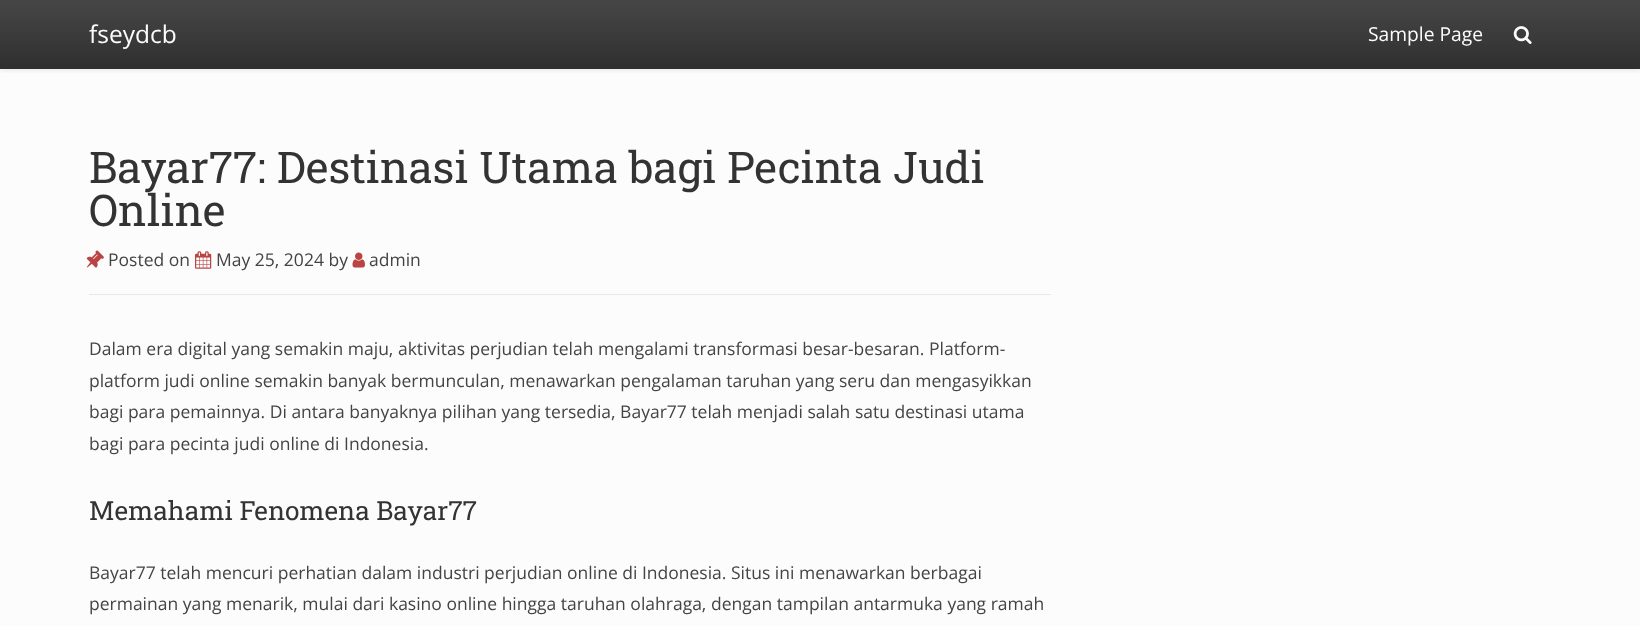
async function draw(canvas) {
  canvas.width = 1640
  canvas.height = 626
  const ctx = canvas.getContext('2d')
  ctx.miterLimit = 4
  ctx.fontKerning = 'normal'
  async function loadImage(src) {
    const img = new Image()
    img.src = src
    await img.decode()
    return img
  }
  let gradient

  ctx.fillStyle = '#fcfcfc'
  ctx.fillRect(0, 0, 1640, 626)
  ctx.save()
  ctx.beginPath()
  ctx.rect(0, 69, 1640, 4)
  ctx.clip()
  ctx.fillStyle = '#1919191a'
  ctx.filter = 'blur(3px)'
  ctx.beginPath()
  ctx.rect(1, 1, 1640, 69)
  ctx.fill()
  ctx.filter = 'none'
  ctx.restore()
  gradient = ctx.createLinearGradient(820, 0, 820, 69)
  gradient.addColorStop(0, '#191919cc')
  gradient.addColorStop(1, '#191919e6')
  ctx.fillStyle = gradient
  ctx.fillRect(0, 0, 1640, 69)
  ctx.font = '24.5px Open Sans'
  ctx.fillStyle = '#fcfcfc'
  ctx.fillText('fseydcb', 89, 43)
  ctx.font = '19.25px Open Sans'
  ctx.fillText('Sample Page', 1368, 41)
  ctx.drawImage(await loadImage('image0.png'), 1513, 26, 19, 18)
  ctx.font = '43.75px Roboto Slab'
  ctx.fillStyle = '#333'
  ctx.fillText('Bayar77: Destinasi Utama bagi Pecinta Judi', 89, 183)
  ctx.fillText('Online', 89, 226)
  ctx.fillStyle = '#e8e8e8'
  ctx.fillRect(89, 294, 962, 1)
  ctx.drawImage(await loadImage('image1.png'), 86, 250, 18, 18)
  ctx.font = '17.5px Open Sans'
  ctx.fillStyle = '#444'
  ctx.fillText('Posted on', 108, 266)
  ctx.drawImage(await loadImage('image2.png'), 195, 251, 17, 18)
  ctx.fillText('May 25, 2024 by', 216, 266)
  ctx.drawImage(await loadImage('image3.png'), 352, 252, 13, 16)
  ctx.fillText('admin', 369, 266)
  ctx.fillText('Dalam era digital yang semakin maju, aktivitas perjudian telah mengalami transformasi besar-besaran. Platform-', 89, 355)
  ctx.fillText('platform judi online semakin banyak bermunculan, menawarkan pengalaman taruhan yang seru dan mengasyikkan', 89, 387)
  ctx.fillText('bagi para pemainnya. Di antara banyaknya pilihan yang tersedia, Bayar77 telah menjadi salah satu destinasi utama', 89, 418)
  ctx.fillText('bagi para pecinta judi online di Indonesia.', 89, 450)
  ctx.font = '26.25px Roboto Slab'
  ctx.fillStyle = '#333'
  ctx.fillText('Memahami Fenomena Bayar77', 89, 520)
  ctx.font = '17.5px Open Sans'
  ctx.fillStyle = '#444'
  ctx.fillText('Bayar77 telah mencuri perhatian dalam industri perjudian online di Indonesia. Situs ini menawarkan berbagai', 89, 579)
  ctx.fillText('permainan yang menarik, mulai dari kasino online hingga taruhan olahraga, dengan tampilan antarmuka yang ramah', 89, 610)
}

draw(document.querySelector('canvas'))
